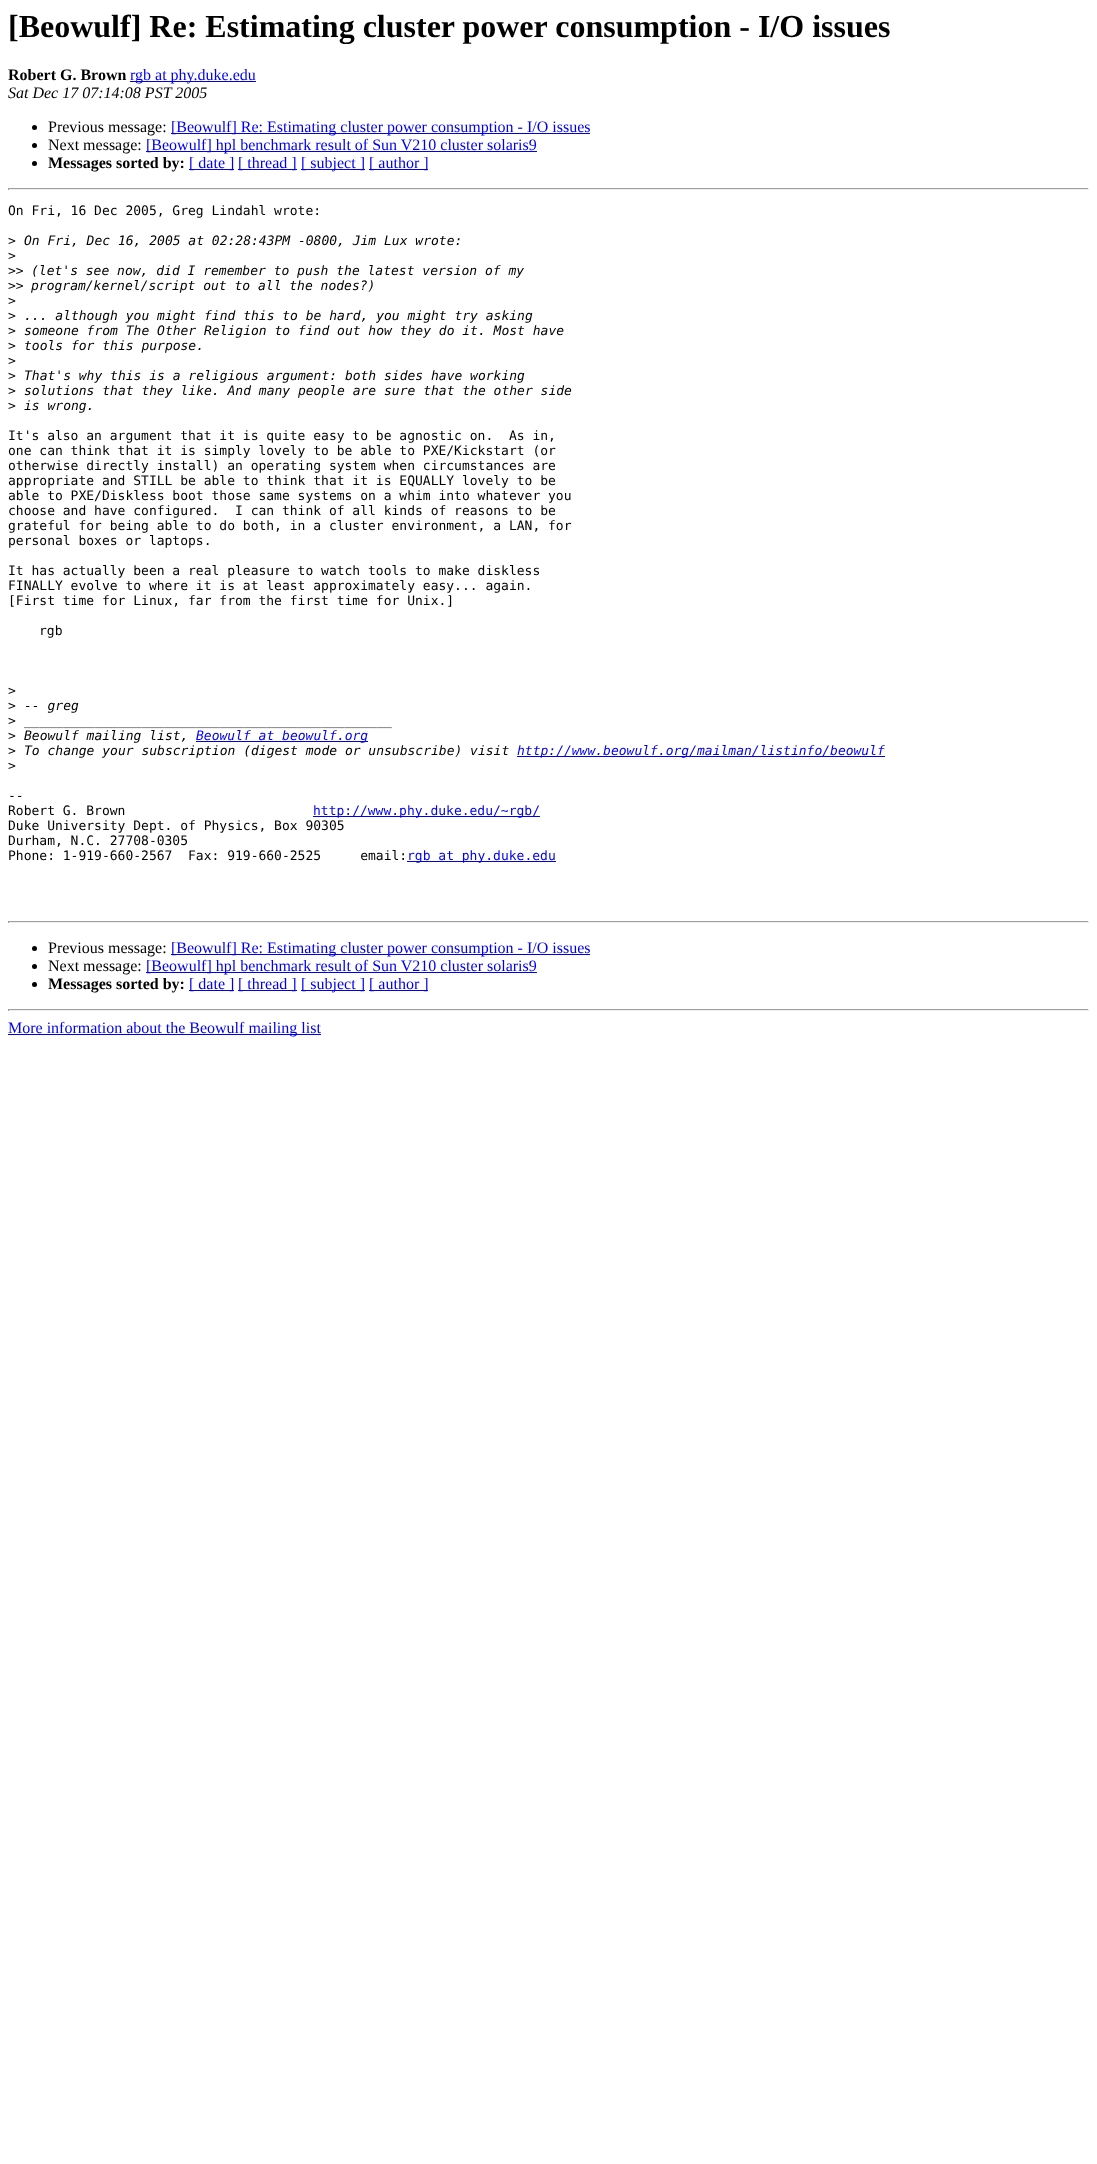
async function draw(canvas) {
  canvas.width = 1097
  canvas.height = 2164
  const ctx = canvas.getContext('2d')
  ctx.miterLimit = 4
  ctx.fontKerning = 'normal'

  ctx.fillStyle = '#fff'
  ctx.fillRect(0, 0, 1097, 2164)
  ctx.font = 'bold 32px Liberation Serif'
  ctx.fillStyle = '#000'
  ctx.fillText('[Beowulf] Re: Estimating cluster power consumption - I/O issues', 8, 37)
  ctx.font = 'bold 16px Liberation Serif'
  ctx.fillText('Robert G. Brown', 8, 80)
  ctx.fillStyle = '#00e'
  ctx.fillRect(130, 81, 126, 1)
  ctx.font = '16px Liberation Serif'
  ctx.fillText('rgb at phy.duke.edu', 130, 80)
  ctx.font = 'italic 16px Liberation Serif'
  ctx.fillStyle = '#000'
  ctx.fillText('Sat Dec 17 07:14:08 PST 2005', 8, 98)
  ctx.beginPath()
  ctx.arc(34.5, 127.5, 2.5, 0, 2 * Math.PI)
  ctx.fill()
  ctx.font = '16px Liberation Serif'
  ctx.fillText('Previous message:', 48, 132)
  ctx.fillStyle = '#00e'
  ctx.fillRect(171, 133, 419, 1)
  ctx.fillText('[Beowulf] Re: Estimating cluster power consumption - I/O issues', 171, 132)
  ctx.fillStyle = '#000'
  ctx.beginPath()
  ctx.arc(34.5, 145.5, 2.5, 0, 2 * Math.PI)
  ctx.fill()
  ctx.fillText('Next message:', 48, 150)
  ctx.fillStyle = '#00e'
  ctx.fillRect(146, 151, 391, 1)
  ctx.fillText('[Beowulf] hpl benchmark result of Sun V210 cluster solaris9', 146, 150)
  ctx.fillStyle = '#000'
  ctx.beginPath()
  ctx.arc(34.5, 163.5, 2.5, 0, 2 * Math.PI)
  ctx.fill()
  ctx.font = 'bold 16px Liberation Serif'
  ctx.fillText('Messages sorted by:', 48, 168)
  ctx.fillStyle = '#00e'
  ctx.fillRect(189, 169, 45, 1)
  ctx.font = '16px Liberation Serif'
  ctx.fillText('[ date ]', 189, 168)
  ctx.fillRect(238, 169, 59, 1)
  ctx.fillText('[ thread ]', 238, 168)
  ctx.fillRect(301, 169, 64, 1)
  ctx.fillText('[ subject ]', 301, 168)
  ctx.fillRect(369, 169, 59, 1)
  ctx.fillText('[ author ]', 369, 168)
  ctx.fillStyle = '#9f9f9f'
  ctx.fillRect(8, 188, 1081, 1)
  ctx.fillStyle = '#eee'
  ctx.fillRect(1088, 188, 1, 2)
  ctx.fillRect(8, 189, 1081, 1)
  ctx.fillStyle = '#9f9f9f'
  ctx.fillRect(8, 188, 1, 2)
  ctx.font = '13px DejaVu Sans Mono'
  ctx.fillStyle = '#000'
  ctx.fillText('On Fri, 16 Dec 2005, Greg Lindahl wrote:', 8, 215)
  ctx.fillText('>', 8, 245)
  ctx.font = 'italic 13px DejaVu Sans Mono'
  ctx.fillText('On Fri, Dec 16, 2005 at 02:28:43PM -0800, Jim Lux wrote:', 24, 245)
  ctx.font = '13px DejaVu Sans Mono'
  ctx.fillText('>', 8, 260)
  ctx.fillText('>>', 8, 275)
  ctx.font = 'italic 13px DejaVu Sans Mono'
  ctx.fillText('(let\'s see now, did I remember to push the latest version of my', 31, 275)
  ctx.font = '13px DejaVu Sans Mono'
  ctx.fillText('>>', 8, 290)
  ctx.font = 'italic 13px DejaVu Sans Mono'
  ctx.fillText('program/kernel/script out to all the nodes?)', 31, 290)
  ctx.font = '13px DejaVu Sans Mono'
  ctx.fillText('>', 8, 305)
  ctx.fillText('>', 8, 320)
  ctx.font = 'italic 13px DejaVu Sans Mono'
  ctx.fillText('... although you might find this to be hard, you might try asking', 24, 320)
  ctx.font = '13px DejaVu Sans Mono'
  ctx.fillText('>', 8, 335)
  ctx.font = 'italic 13px DejaVu Sans Mono'
  ctx.fillText('someone from The Other Religion to find out how they do it. Most have', 24, 335)
  ctx.font = '13px DejaVu Sans Mono'
  ctx.fillText('>', 8, 350)
  ctx.font = 'italic 13px DejaVu Sans Mono'
  ctx.fillText('tools for this purpose.', 24, 350)
  ctx.font = '13px DejaVu Sans Mono'
  ctx.fillText('>', 8, 365)
  ctx.fillText('>', 8, 380)
  ctx.font = 'italic 13px DejaVu Sans Mono'
  ctx.fillText('That\'s why this is a religious argument: both sides have working', 24, 380)
  ctx.font = '13px DejaVu Sans Mono'
  ctx.fillText('>', 8, 395)
  ctx.font = 'italic 13px DejaVu Sans Mono'
  ctx.fillText('solutions that they like. And many people are sure that the other side', 24, 395)
  ctx.font = '13px DejaVu Sans Mono'
  ctx.fillText('>', 8, 410)
  ctx.font = 'italic 13px DejaVu Sans Mono'
  ctx.fillText('is wrong.', 24, 410)
  ctx.font = '13px DejaVu Sans Mono'
  ctx.fillText('It\'s also an argument that it is quite easy to be agnostic on.  As in,', 8, 440)
  ctx.fillText('one can think that it is simply lovely to be able to PXE/Kickstart (or', 8, 455)
  ctx.fillText('otherwise directly install) an operating system when circumstances are', 8, 470)
  ctx.fillText('appropriate and STILL be able to think that it is EQUALLY lovely to be', 8, 485)
  ctx.fillText('able to PXE/Diskless boot those same systems on a whim into whatever you', 8, 500)
  ctx.fillText('choose and have configured.  I can think of all kinds of reasons to be', 8, 515)
  ctx.fillText('grateful for being able to do both, in a cluster environment, a LAN, for', 8, 530)
  ctx.fillText('personal boxes or laptops.', 8, 545)
  ctx.fillText('It has actually been a real pleasure to watch tools to make diskless', 8, 575)
  ctx.fillText('FINALLY evolve to where it is at least approximately easy... again.', 8, 590)
  ctx.fillText('[First time for Linux, far from the first time for Unix.]', 8, 605)
  ctx.fillText('rgb', 39, 635)
  ctx.fillText('>', 8, 695)
  ctx.fillText('>', 8, 710)
  ctx.font = 'italic 13px DejaVu Sans Mono'
  ctx.fillText('-- greg', 24, 710)
  ctx.font = '13px DejaVu Sans Mono'
  ctx.fillText('>', 8, 725)
  ctx.font = 'italic 13px DejaVu Sans Mono'
  ctx.fillText('_______________________________________________', 24, 725)
  ctx.font = '13px DejaVu Sans Mono'
  ctx.fillText('>', 8, 740)
  ctx.font = 'italic 13px DejaVu Sans Mono'
  ctx.fillText('Beowulf mailing list,', 24, 740)
  ctx.fillStyle = '#00e'
  ctx.fillRect(196, 741, 172, 1)
  ctx.fillText('Beowulf at beowulf.org', 196, 740)
  ctx.font = '13px DejaVu Sans Mono'
  ctx.fillStyle = '#000'
  ctx.fillText('>', 8, 755)
  ctx.font = 'italic 13px DejaVu Sans Mono'
  ctx.fillText('To change your subscription (digest mode or unsubscribe) visit', 24, 755)
  ctx.fillStyle = '#00e'
  ctx.fillRect(517, 756, 368, 1)
  ctx.fillText('http://www.beowulf.org/mailman/listinfo/beowulf', 517, 755)
  ctx.font = '13px DejaVu Sans Mono'
  ctx.fillStyle = '#000'
  ctx.fillText('>', 8, 770)
  ctx.fillText('--', 8, 800)
  ctx.fillText('Robert G. Brown', 8, 815)
  ctx.fillStyle = '#00e'
  ctx.fillRect(313, 816, 227, 1)
  ctx.fillText('http://www.phy.duke.edu/~rgb/', 313, 815)
  ctx.fillStyle = '#000'
  ctx.fillText('Duke University Dept. of Physics, Box 90305', 8, 830)
  ctx.fillText('Durham, N.C. 27708-0305', 8, 845)
  ctx.fillText('Phone: 1-919-660-2567  Fax: 919-660-2525     email:', 8, 860)
  ctx.fillStyle = '#00e'
  ctx.fillRect(407, 861, 149, 1)
  ctx.fillText('rgb at phy.duke.edu', 407, 860)
  ctx.fillStyle = '#9f9f9f'
  ctx.fillRect(8, 921, 1081, 1)
  ctx.fillStyle = '#eee'
  ctx.fillRect(1088, 921, 1, 2)
  ctx.fillRect(8, 922, 1081, 1)
  ctx.fillStyle = '#9f9f9f'
  ctx.fillRect(8, 921, 1, 2)
  ctx.fillStyle = '#000'
  ctx.beginPath()
  ctx.arc(34.5, 948.5, 2.5, 0, 2 * Math.PI)
  ctx.fill()
  ctx.font = '16px Liberation Serif'
  ctx.fillText('Previous message:', 48, 953)
  ctx.fillStyle = '#00e'
  ctx.fillRect(171, 954, 419, 1)
  ctx.fillText('[Beowulf] Re: Estimating cluster power consumption - I/O issues', 171, 953)
  ctx.fillStyle = '#000'
  ctx.beginPath()
  ctx.arc(34.5, 966.5, 2.5, 0, 2 * Math.PI)
  ctx.fill()
  ctx.fillText('Next message:', 48, 971)
  ctx.fillStyle = '#00e'
  ctx.fillRect(146, 972, 391, 1)
  ctx.fillText('[Beowulf] hpl benchmark result of Sun V210 cluster solaris9', 146, 971)
  ctx.fillStyle = '#000'
  ctx.beginPath()
  ctx.arc(34.5, 984.5, 2.5, 0, 2 * Math.PI)
  ctx.fill()
  ctx.font = 'bold 16px Liberation Serif'
  ctx.fillText('Messages sorted by:', 48, 989)
  ctx.fillStyle = '#00e'
  ctx.fillRect(189, 990, 45, 1)
  ctx.font = '16px Liberation Serif'
  ctx.fillText('[ date ]', 189, 989)
  ctx.fillRect(238, 990, 59, 1)
  ctx.fillText('[ thread ]', 238, 989)
  ctx.fillRect(301, 990, 64, 1)
  ctx.fillText('[ subject ]', 301, 989)
  ctx.fillRect(369, 990, 59, 1)
  ctx.fillText('[ author ]', 369, 989)
  ctx.fillStyle = '#9f9f9f'
  ctx.fillRect(8, 1009, 1081, 1)
  ctx.fillStyle = '#eee'
  ctx.fillRect(1088, 1009, 1, 2)
  ctx.fillRect(8, 1010, 1081, 1)
  ctx.fillStyle = '#9f9f9f'
  ctx.fillRect(8, 1009, 1, 2)
  ctx.fillStyle = '#00e'
  ctx.fillRect(8, 1034, 313, 1)
  ctx.fillText('More information about the Beowulf mailing list', 8, 1033)
}

draw(document.querySelector('canvas'))
